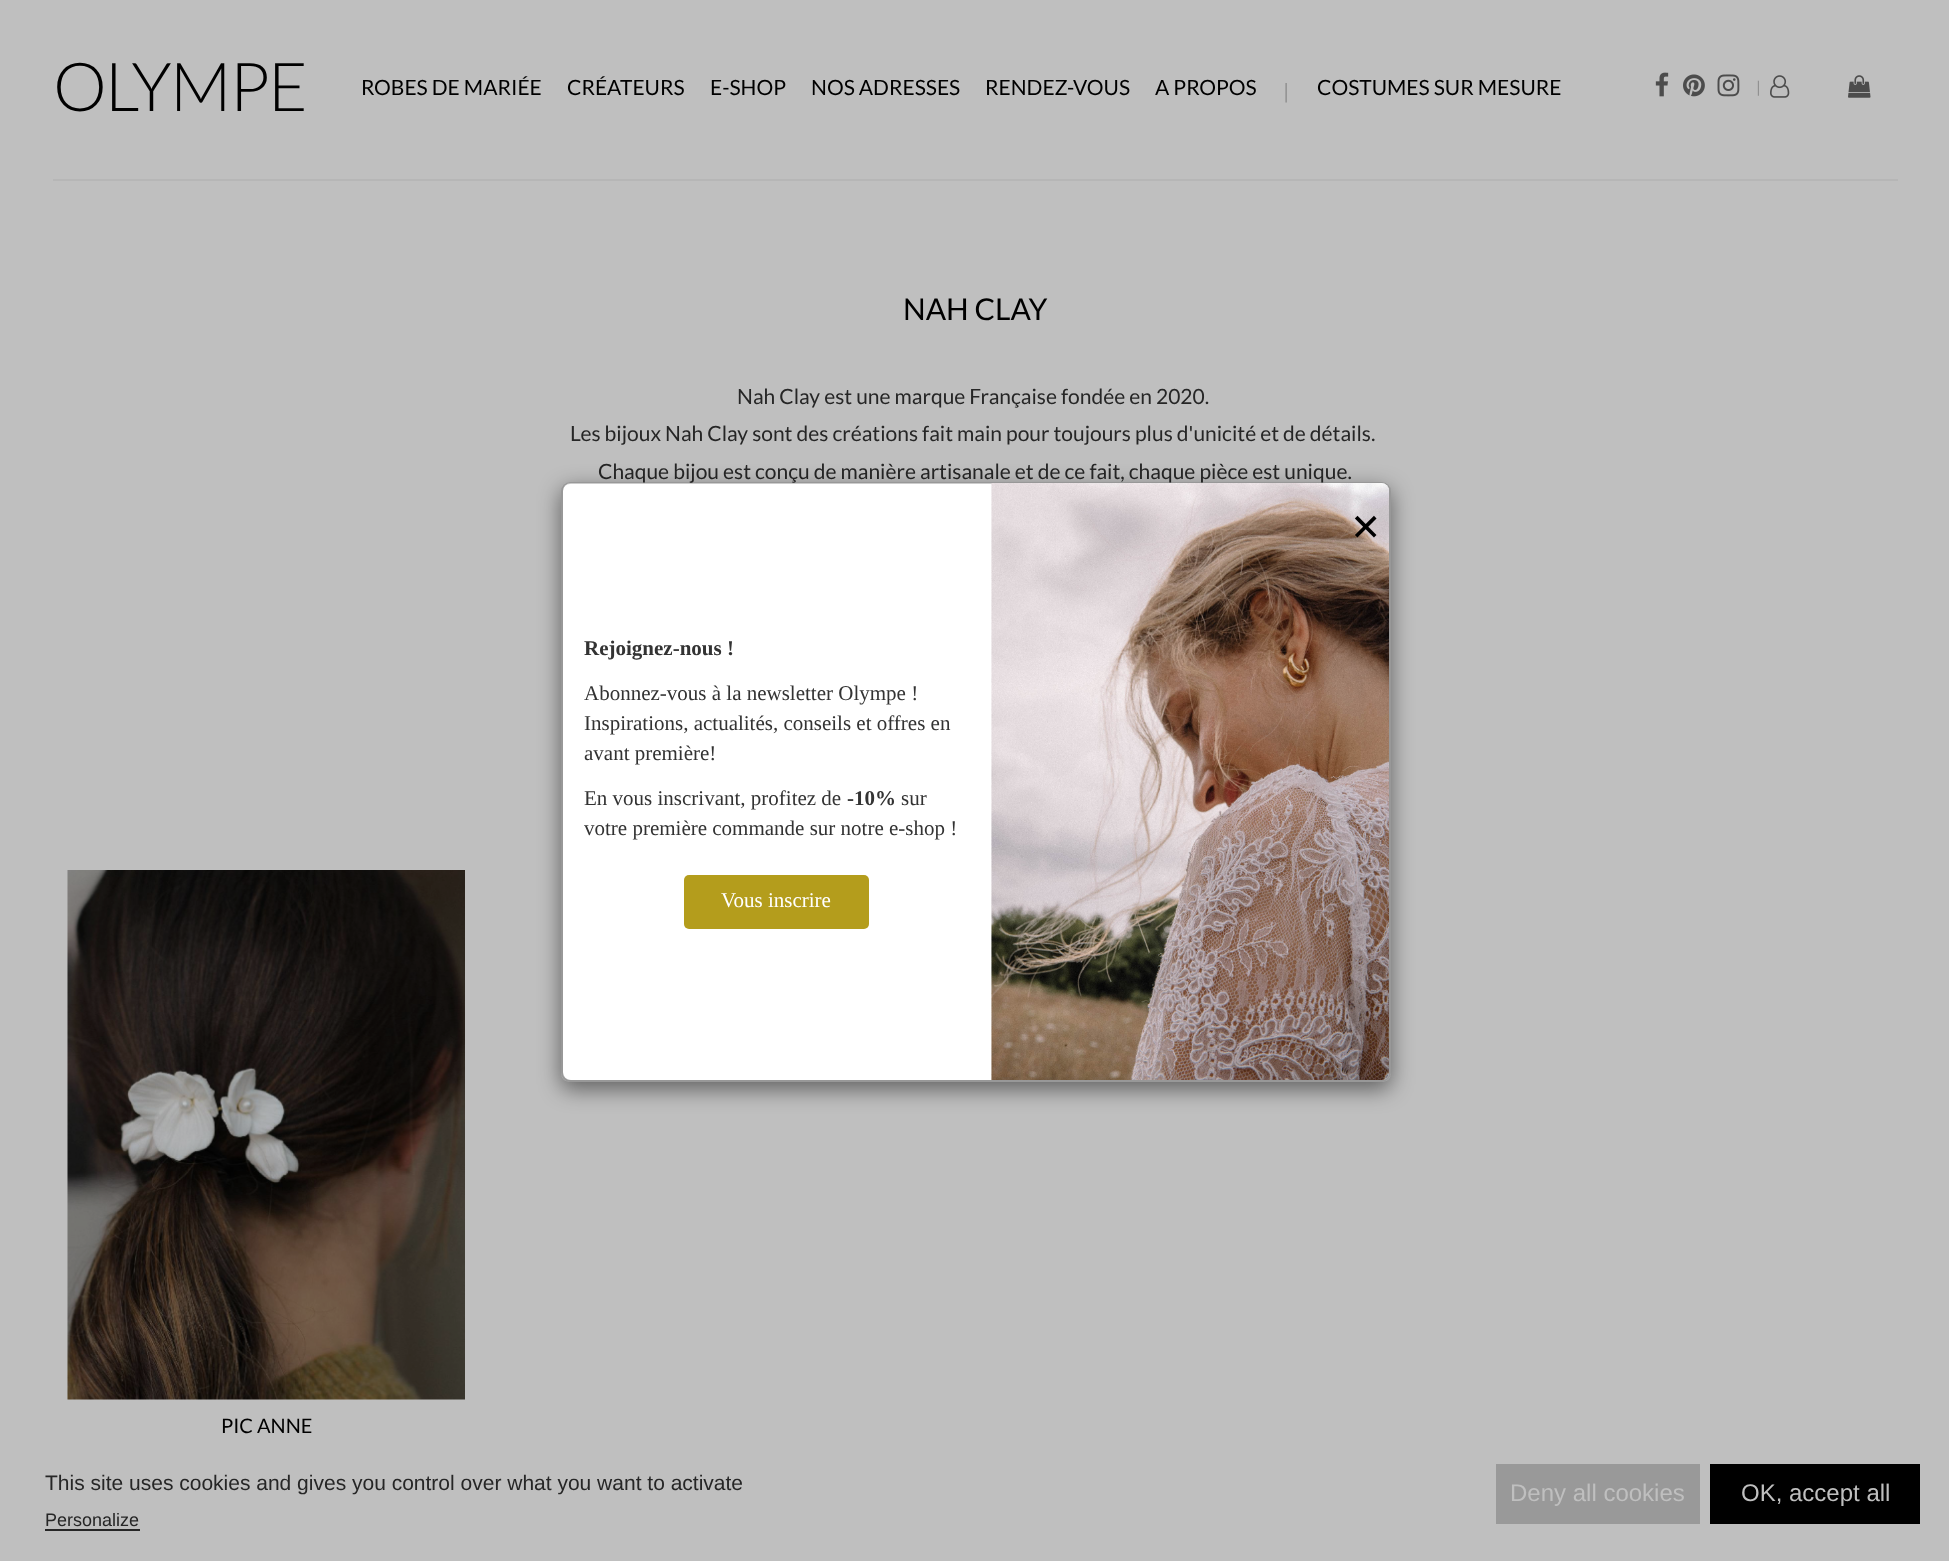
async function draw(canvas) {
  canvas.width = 1949
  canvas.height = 1561
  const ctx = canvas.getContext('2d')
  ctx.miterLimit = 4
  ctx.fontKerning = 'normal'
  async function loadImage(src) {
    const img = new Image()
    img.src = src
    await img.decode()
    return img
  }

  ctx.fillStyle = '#bfbfbf'
  ctx.fillRect(0, 0, 1949, 1561)
  ctx.letterSpacing = '-1.75px'
  ctx.font = '300 67.5px Lato'
  ctx.fillStyle = '#000'
  ctx.fillText('OLYMPE', 53, 111)
  ctx.letterSpacing = '0px'
  ctx.font = '21px Lato'
  ctx.fillText('ROBES DE MARIÉE', 361, 95)
  ctx.fillText('CRÉATEURS', 567, 95)
  ctx.fillText('E-SHOP', 710, 95)
  ctx.fillText('NOS ADRESSES', 811, 95)
  ctx.fillText('RENDEZ-VOUS', 985, 95)
  ctx.fillText('A PROPOS', 1155, 95)
  ctx.fillStyle = '#8f8f8f'
  ctx.fillText('|', 1283, 99)
  ctx.fillStyle = '#000'
  ctx.fillText('COSTUMES SUR MESURE', 1317, 95)
  ctx.drawImage(await loadImage('image0.png'), 1655, 72, 14, 25)
  ctx.drawImage(await loadImage('image1.png'), 1683, 74, 22, 23)
  ctx.drawImage(await loadImage('image2.png'), 1717, 74, 23, 23)
  ctx.font = '16px Lato'
  ctx.fillStyle = '#8f8f8f'
  ctx.fillText('|', 1756, 93)
  ctx.drawImage(await loadImage('image3.png'), 1770, 75, 20, 23)
  ctx.drawImage(await loadImage('image4.png'), 1848, 75, 23, 23)
  ctx.fillStyle = '#b6b6b6'
  ctx.fillRect(53, 179, 1845, 2)
  ctx.font = '30px Lato'
  ctx.fillStyle = '#000'
  ctx.fillText('NAH CLAY', 903, 320)
  ctx.font = '21px Lato'
  ctx.fillStyle = '#262626'
  ctx.fillText('Nah Clay est une marque Française fondée en 2020.', 737, 404)
  ctx.fillText('Les bijoux Nah Clay sont des créations fait main pour toujours plus d\'unicité et de détails.', 570, 441)
  ctx.fillText('Chaque bijou est conçu de manière artisanale et de ce fait, chaque pièce est unique.', 598, 479)
  ctx.drawImage(await loadImage('image5.png'), 67, 870, 398, 530)
  ctx.font = '20px Lato'
  ctx.fillStyle = '#000'
  ctx.fillText('PIC ANNE', 221, 1433)
  ctx.save()
  ctx.beginPath()
  ctx.moveTo(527, 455)
  ctx.lineTo(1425, 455)
  ctx.lineTo(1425, 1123)
  ctx.lineTo(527, 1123)
  ctx.closePath()
  ctx.moveTo(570, 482)
  ctx.lineTo(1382, 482)
  ctx.bezierCurveTo(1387, 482, 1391, 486, 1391, 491)
  ctx.lineTo(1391, 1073)
  ctx.bezierCurveTo(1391, 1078, 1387, 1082, 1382, 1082)
  ctx.lineTo(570, 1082)
  ctx.bezierCurveTo(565, 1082, 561, 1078, 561, 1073)
  ctx.lineTo(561, 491)
  ctx.bezierCurveTo(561, 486, 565, 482, 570, 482)
  ctx.closePath()
  ctx.clip('evenodd')
  ctx.fillStyle = '#00000080'
  ctx.filter = 'blur(11px)'
  ctx.beginPath()
  ctx.roundRect(561, 489, 830, 600, 9)
  ctx.fill()
  ctx.filter = 'none'
  ctx.restore()
  ctx.fillStyle = '#fff'
  ctx.beginPath()
  ctx.roundRect(563, 483, 826, 597, 8)
  ctx.fill()
  ctx.beginPath()
  ctx.roundRect(562, 483, 828, 598, 8)
  ctx.strokeStyle = '#00000033'
  ctx.lineWidth = 2
  ctx.stroke()
  ctx.drawImage(await loadImage('image6.png'), 991, 483, 398, 597)
  ctx.font = 'bold 52px Liberation Serif'
  ctx.fillStyle = '#000'
  ctx.fillText('×', 1351, 544)
  ctx.font = 'bold 21px Liberation Serif'
  ctx.fillStyle = '#333'
  ctx.fillText('Rejoignez-nous !', 584, 655)
  ctx.font = '21px Liberation Serif'
  ctx.fillText('Abonnez-vous à la newsletter Olympe !', 584, 700)
  ctx.fillText('Inspirations, actualités, conseils et offres en', 584, 730)
  ctx.fillText('avant première!', 584, 760)
  ctx.fillText('En vous inscrivant, profitez de', 584, 805)
  ctx.font = 'bold 21px Liberation Serif'
  ctx.fillText('-10%', 847, 805)
  ctx.font = '21px Liberation Serif'
  ctx.fillText('sur', 901, 805)
  ctx.fillText('votre première commande sur notre e-shop !', 584, 835)
  ctx.fillStyle = '#b49d1c'
  ctx.beginPath()
  ctx.roundRect(684, 875, 185, 54, 5)
  ctx.fill()
  ctx.fillStyle = '#fff'
  ctx.fillText('Vous inscrire', 721, 907)
  ctx.font = '21px Liberation Sans'
  ctx.fillStyle = '#262626'
  ctx.fillText('This site uses cookies and gives you control over what you want to activate', 45, 1490)
  ctx.fillStyle = '#999'
  ctx.fillRect(1496, 1464, 204, 60)
  ctx.font = '24px Liberation Sans'
  ctx.fillStyle = '#bfbfbf'
  ctx.fillText('Deny all cookies', 1510, 1501)
  ctx.fillStyle = '#000'
  ctx.fillRect(1710, 1464, 210, 60)
  ctx.fillStyle = '#bfbfbf'
  ctx.fillText('OK, accept all', 1741, 1501)
  ctx.font = '18px Liberation Sans'
  ctx.fillStyle = '#262626'
  ctx.fillText('Personalize', 45, 1526)
  ctx.fillRect(45, 1529, 95, 2)
}

draw(document.querySelector('canvas'))
